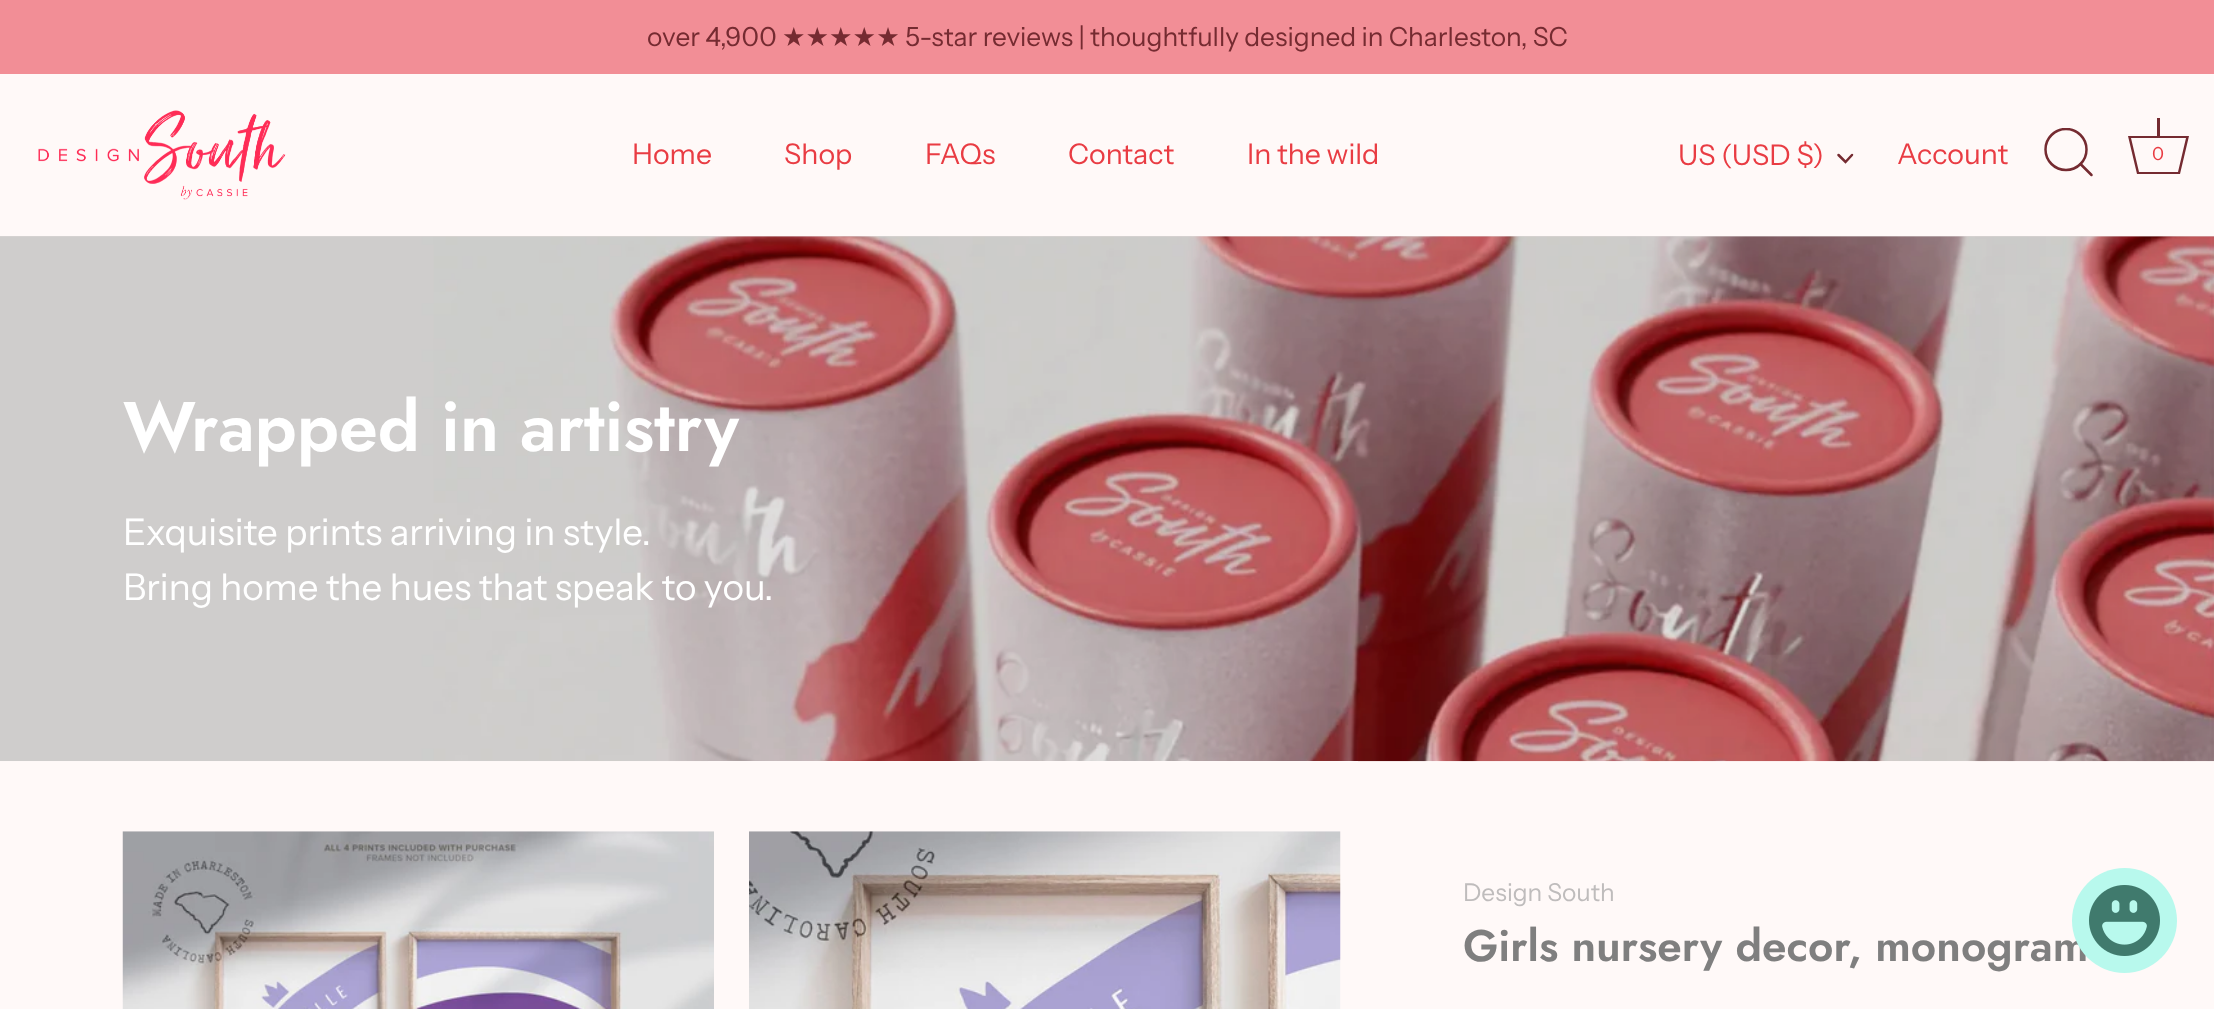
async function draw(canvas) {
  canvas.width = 2214
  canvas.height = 1009
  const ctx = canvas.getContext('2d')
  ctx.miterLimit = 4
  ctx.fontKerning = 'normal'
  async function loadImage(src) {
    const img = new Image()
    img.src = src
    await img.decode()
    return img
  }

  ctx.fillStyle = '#fff9f8'
  ctx.fillRect(0, 0, 2214, 1009)
  ctx.fillStyle = '#ded9d8'
  ctx.fillRect(0, 236, 2214, 1)
  ctx.fillStyle = '#f28e96'
  ctx.fillRect(0, 0, 2214, 74)
  ctx.font = '26.25px Instrument Sans'
  ctx.fillStyle = '#752b31'
  ctx.fillText('over 4,900', 647, 46)
  ctx.font = '26.25px DejaVu Sans'
  ctx.fillText('★★★★★', 782, 46)
  ctx.font = '26.25px Instrument Sans'
  ctx.fillText('5-star reviews | thoughtfully designed in Charleston, SC', 905, 46)
  ctx.drawImage(await loadImage('image0.png'), 38, 110, 248, 90)
  ctx.font = '28.5px Instrument Sans'
  ctx.fillStyle = '#e93c43'
  ctx.fillText('Home', 632, 164)
  ctx.fillText('Shop', 784, 164)
  ctx.fillText('FAQs', 925, 164)
  ctx.fillText('Contact', 1068, 164)
  ctx.fillText('In the wild', 1247, 164)
  ctx.fillText('US (USD $)', 1678, 165)
  ctx.beginPath()
  ctx.moveTo(1838.5, 155)
  ctx.lineTo(1845.5, 162)
  ctx.lineTo(1852, 155)
  ctx.strokeStyle = '#752b31'
  ctx.lineWidth = 2.5
  ctx.lineCap = 'round'
  ctx.stroke()
  ctx.fillText('Account', 1897, 164)
  ctx.save()
  ctx.beginPath()
  ctx.rect(2044, 128, 51, 51)
  ctx.clip()
  ctx.beginPath()
  ctx.arc(2066, 149.5, 20.5, 0, 2 * Math.PI)
  ctx.stroke()
  ctx.restore()
  ctx.beginPath()
  ctx.moveTo(2091.5, 175)
  ctx.lineTo(2080.5, 164)
  ctx.lineJoin = 'round'
  ctx.stroke()
  ctx.fillStyle = '#752b31'
  ctx.fillRect(2157, 118, 3, 18)
  ctx.beginPath()
  ctx.moveTo(2186, 138)
  ctx.lineTo(2178, 172)
  ctx.lineTo(2139, 172)
  ctx.lineTo(2131, 138)
  ctx.lineTo(2186, 138)
  ctx.moveTo(2189, 136)
  ctx.lineTo(2128, 136)
  ctx.lineTo(2137, 174)
  ctx.lineTo(2180, 174)
  ctx.closePath()
  ctx.fill()
  ctx.font = '18px Instrument Sans'
  ctx.fillStyle = '#e93c43'
  ctx.fillText('0', 2152, 160)
  ctx.drawImage(await loadImage('image1.png'), 0, 236, 2214, 526)
  ctx.font = '600 70px Jost'
  ctx.fillStyle = '#fff'
  ctx.fillText('Wrapped in artistry', 123, 451)
  ctx.font = '36.75px Instrument Sans'
  ctx.fillText('Exquisite prints arriving in style.', 123, 545)
  ctx.fillText('Bring home the hues that speak to you.', 123, 600)
  ctx.fillStyle = '#fff9f8'
  ctx.fillRect(708, 761, 650, 1)
  ctx.drawImage(await loadImage('image2.png'), 122, 831, 592, 178)
  ctx.drawImage(await loadImage('image3.png'), 749, 831, 592, 178)
  ctx.font = '24.5px Instrument Sans'
  ctx.fillStyle = '#bfbcbc'
  ctx.fillText('Design South', 1463, 901)
  ctx.font = '600 44.1px Jost'
  ctx.fillStyle = '#7f7f7f'
  ctx.fillText('Girls nursery decor, monogram', 1463, 961)
  ctx.fillStyle = '#b8f9ed'
  ctx.beginPath()
  ctx.arc(2124.5, 920.5, 52.5, 0, 2 * Math.PI)
  ctx.fill()
  ctx.drawImage(await loadImage('image4.png'), 2089, 885, 71, 71)
}

draw(document.querySelector('canvas'))
